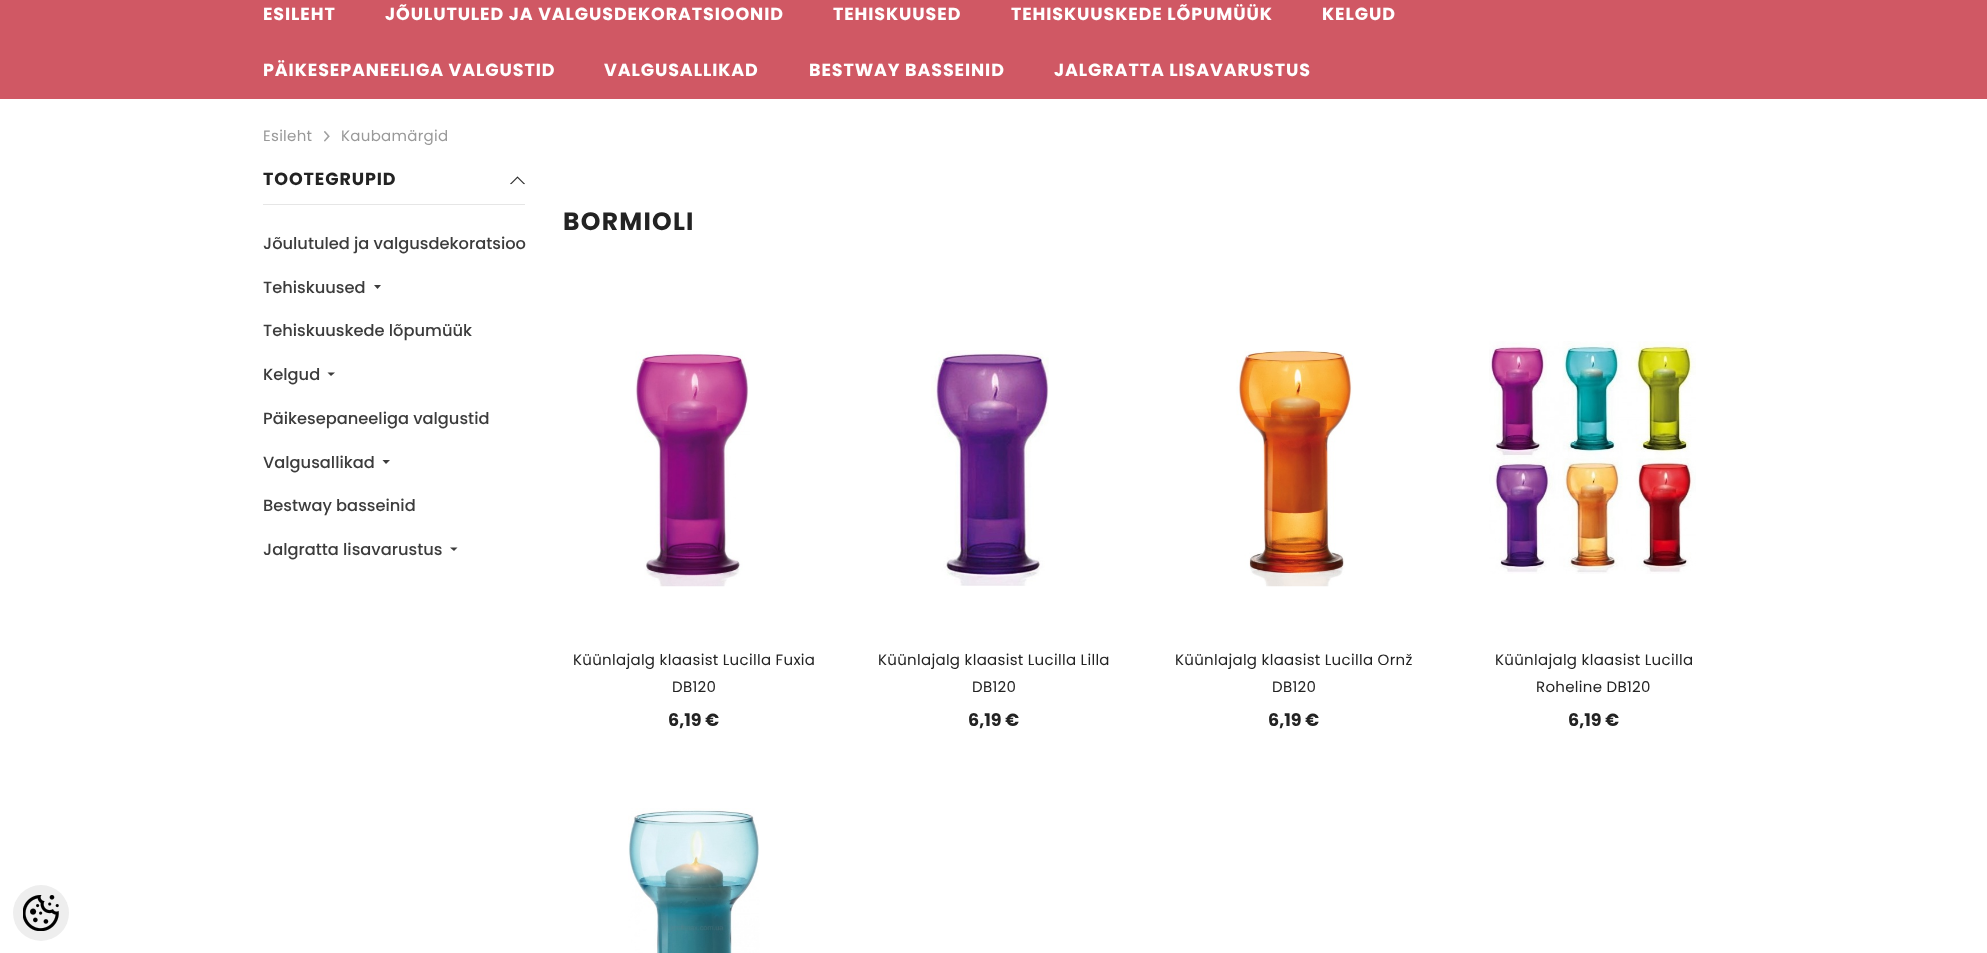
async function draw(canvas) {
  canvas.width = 1987
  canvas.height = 953
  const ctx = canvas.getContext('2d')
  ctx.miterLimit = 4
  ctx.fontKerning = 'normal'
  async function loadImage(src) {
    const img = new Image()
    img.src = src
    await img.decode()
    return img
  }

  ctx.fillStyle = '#fff'
  ctx.fillRect(0, 0, 1987, 953)
  ctx.fillStyle = '#d05864'
  ctx.fillRect(0, 0, 1987, 99)
  ctx.letterSpacing = '0.9px'
  ctx.font = 'bold 17.5px Poppins'
  ctx.fillStyle = '#fff'
  ctx.fillText('ESILEHT', 263, 20)
  ctx.fillText('JÕULUTULED JA VALGUSDEKORATSIOONID', 385, 20)
  ctx.fillText('TEHISKUUSED', 833, 20)
  ctx.fillText('TEHISKUUSKEDE LÕPUMÜÜK', 1011, 20)
  ctx.fillText('KELGUD', 1322, 20)
  ctx.fillText('PÄIKESEPANEELIGA VALGUSTID', 263, 76)
  ctx.fillText('VALGUSALLIKAD', 604, 76)
  ctx.fillText('BESTWAY BASSEINID', 809, 76)
  ctx.fillText('JALGRATTA LISAVARUSTUS', 1054, 76)
  ctx.letterSpacing = '0.3px'
  ctx.font = '15px Poppins'
  ctx.fillStyle = '#999'
  ctx.fillText('Esileht', 263, 141)
  ctx.drawImage(await loadImage('image0.png'), 324, 131, 6, 11)
  ctx.fillText('Kaubamärgid', 341, 141)
  ctx.fillStyle = '#e6e6e6'
  ctx.fillRect(263, 204, 262, 1)
  ctx.letterSpacing = '0.9px'
  ctx.font = 'bold 17.5px Poppins'
  ctx.fillStyle = '#232323'
  ctx.fillText('TOOTEGRUPID', 263, 185)
  ctx.drawImage(await loadImage('image1.png'), 510, 176, 15, 9)
  ctx.letterSpacing = '0px'
  ctx.font = '500 16.25px Poppins'
  ctx.fillStyle = '#3c3c3c'
  ctx.fillText('Jõulutuled ja valgusdekoratsioo', 263, 249)
  ctx.fillText('Tehiskuused', 263, 293)
  ctx.beginPath()
  ctx.moveTo(374, 285)
  ctx.lineTo(381, 285)
  ctx.lineTo(377.5, 289)
  ctx.closePath()
  ctx.fill()
  ctx.fillText('Tehiskuuskede lõpumüük', 263, 336)
  ctx.fillText('Kelgud', 263, 380)
  ctx.beginPath()
  ctx.moveTo(327.5, 372.5)
  ctx.lineTo(335, 372.5)
  ctx.lineTo(331, 376)
  ctx.closePath()
  ctx.fill()
  ctx.fillText('Päikesepaneeliga valgustid', 263, 424)
  ctx.fillText('Valgusallikad', 263, 468)
  ctx.beginPath()
  ctx.moveTo(382.5, 460)
  ctx.lineTo(390, 460)
  ctx.lineTo(386, 464)
  ctx.closePath()
  ctx.fill()
  ctx.fillText('Bestway basseinid', 263, 511)
  ctx.fillText('Jalgratta lisavarustus', 263, 555)
  ctx.beginPath()
  ctx.moveTo(450, 547.5)
  ctx.lineTo(457.5, 547.5)
  ctx.lineTo(454, 551)
  ctx.closePath()
  ctx.fill()
  ctx.letterSpacing = '1.25px'
  ctx.font = 'bold 25px Poppins'
  ctx.fillStyle = '#232323'
  ctx.fillText('BORMIOLI', 563, 230)
  ctx.drawImage(await loadImage('image2.png'), 635, 351, 115, 236)
  ctx.letterSpacing = '0.3px'
  ctx.font = '15px Poppins'
  ctx.fillText('Küünlajalg klaasist Lucilla Fuxia', 573, 665)
  ctx.fillText('DB120', 672, 692)
  ctx.letterSpacing = '0px'
  ctx.font = 'bold 17.5px Poppins'
  ctx.fillText('6,19 €', 668, 726)
  ctx.drawImage(await loadImage('image3.png'), 931, 350, 118, 236)
  ctx.letterSpacing = '0.3px'
  ctx.font = '15px Poppins'
  ctx.fillText('Küünlajalg klaasist Lucilla Lilla', 878, 665)
  ctx.fillText('DB120', 972, 692)
  ctx.letterSpacing = '0px'
  ctx.font = 'bold 17.5px Poppins'
  ctx.fillText('6,19 €', 968, 726)
  ctx.drawImage(await loadImage('image4.png'), 1236, 350, 117, 237)
  ctx.letterSpacing = '0.3px'
  ctx.font = '15px Poppins'
  ctx.fillText('Küünlajalg klaasist Lucilla Ornž', 1175, 665)
  ctx.fillText('DB120', 1272, 692)
  ctx.letterSpacing = '0px'
  ctx.font = 'bold 17.5px Poppins'
  ctx.fillText('6,19 €', 1268, 726)
  ctx.drawImage(await loadImage('image5.png'), 1489, 341, 207, 233)
  ctx.letterSpacing = '0.3px'
  ctx.font = '15px Poppins'
  ctx.fillText('Küünlajalg klaasist Lucilla', 1495, 665)
  ctx.fillText('Roheline DB120', 1536, 692)
  ctx.letterSpacing = '0px'
  ctx.font = 'bold 17.5px Poppins'
  ctx.fillText('6,19 €', 1568, 726)
  ctx.drawImage(await loadImage('image6.png'), 628, 808, 132, 145)
  ctx.fillStyle = '#eee'
  ctx.beginPath()
  ctx.arc(41, 913, 28, 0, 2 * Math.PI)
  ctx.fill()
  ctx.drawImage(await loadImage('image7.png'), 23, 895, 36, 36)
}

draw(document.querySelector('canvas'))
